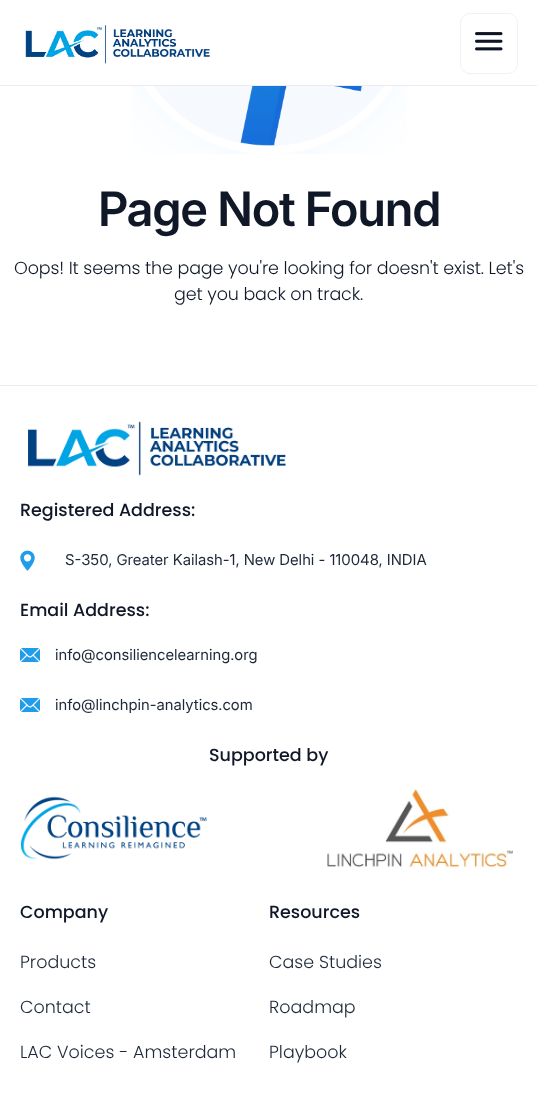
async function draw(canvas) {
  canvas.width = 537
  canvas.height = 1093
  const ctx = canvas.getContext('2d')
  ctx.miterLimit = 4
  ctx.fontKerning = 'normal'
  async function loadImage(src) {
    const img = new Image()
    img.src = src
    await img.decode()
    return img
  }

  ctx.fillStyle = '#fff'
  ctx.fillRect(0, 0, 537, 1093)
  ctx.fillStyle = '#eaecf0'
  ctx.fillRect(0, 85, 537, 1)
  ctx.drawImage(await loadImage('image0.png'), 25, 25, 185, 39)
  ctx.beginPath()
  ctx.roundRect(460.5, 13.5, 57, 60, 9.5)
  ctx.strokeStyle = '#f2f2f2'
  ctx.stroke()
  ctx.drawImage(await loadImage('image1.png'), 475, 32, 28, 19)
  ctx.drawImage(await loadImage('image2.png'), 132, 86, 275, 68)
  ctx.letterSpacing = '-1.25px'
  ctx.font = '600 47.5px Inter'
  ctx.fillStyle = '#101828'
  ctx.fillText('Page Not Found', 98, 226)
  ctx.letterSpacing = '-0.12px'
  ctx.font = '300 17.5px Poppins'
  ctx.fillText('Oops! It seems the page you\'re looking for doesn\'t exist. Let\'s', 14, 274)
  ctx.fillText('get you back on track.', 174, 300)
  ctx.fillStyle = '#eaecf0'
  ctx.fillRect(0, 385, 537, 1)
  ctx.drawImage(await loadImage('image3.png'), 28, 421, 258, 55)
  ctx.letterSpacing = '0px'
  ctx.font = '500 17.5px Poppins'
  ctx.fillStyle = '#101828'
  ctx.fillText('Registered Address:', 20, 516)
  ctx.drawImage(await loadImage('image4.png'), 20, 550, 15, 21)
  ctx.font = '15px Inter'
  ctx.fillStyle = '#1d2939'
  ctx.fillText('S-350, Greater Kailash-1, New Delhi - 110048, INDIA', 65, 565)
  ctx.font = '500 17.5px Poppins'
  ctx.fillStyle = '#101828'
  ctx.fillText('Email Address:', 20, 616)
  ctx.drawImage(await loadImage('image5.png'), 20, 648, 20, 14)
  ctx.font = '15px Inter'
  ctx.fillStyle = '#1d2939'
  ctx.fillText('info@consiliencelearning.org', 55, 660)
  ctx.drawImage(await loadImage('image5.png'), 20, 698, 20, 14)
  ctx.fillText('info@linchpin-analytics.com', 55, 710)
  ctx.font = '500 17.5px Poppins'
  ctx.fillStyle = '#101828'
  ctx.fillText('Supported by', 209, 761)
  ctx.drawImage(await loadImage('image6.png'), 21, 796, 186, 64)
  ctx.drawImage(await loadImage('image7.png'), 327, 788, 186, 81)
  ctx.fillText('Company', 20, 918)
  ctx.font = '300 17.5px Poppins'
  ctx.fillStyle = '#1d2939'
  ctx.fillText('Products', 20, 968)
  ctx.fillText('Contact', 20, 1013)
  ctx.fillText('LAC Voices - Amsterdam', 20, 1058)
  ctx.font = '500 17.5px Poppins'
  ctx.fillStyle = '#101828'
  ctx.fillText('Resources', 269, 918)
  ctx.font = '300 17.5px Poppins'
  ctx.fillStyle = '#1d2939'
  ctx.fillText('Case Studies', 269, 968)
  ctx.fillText('Roadmap', 269, 1013)
  ctx.fillText('Playbook', 269, 1058)
}

draw(document.querySelector('canvas'))
